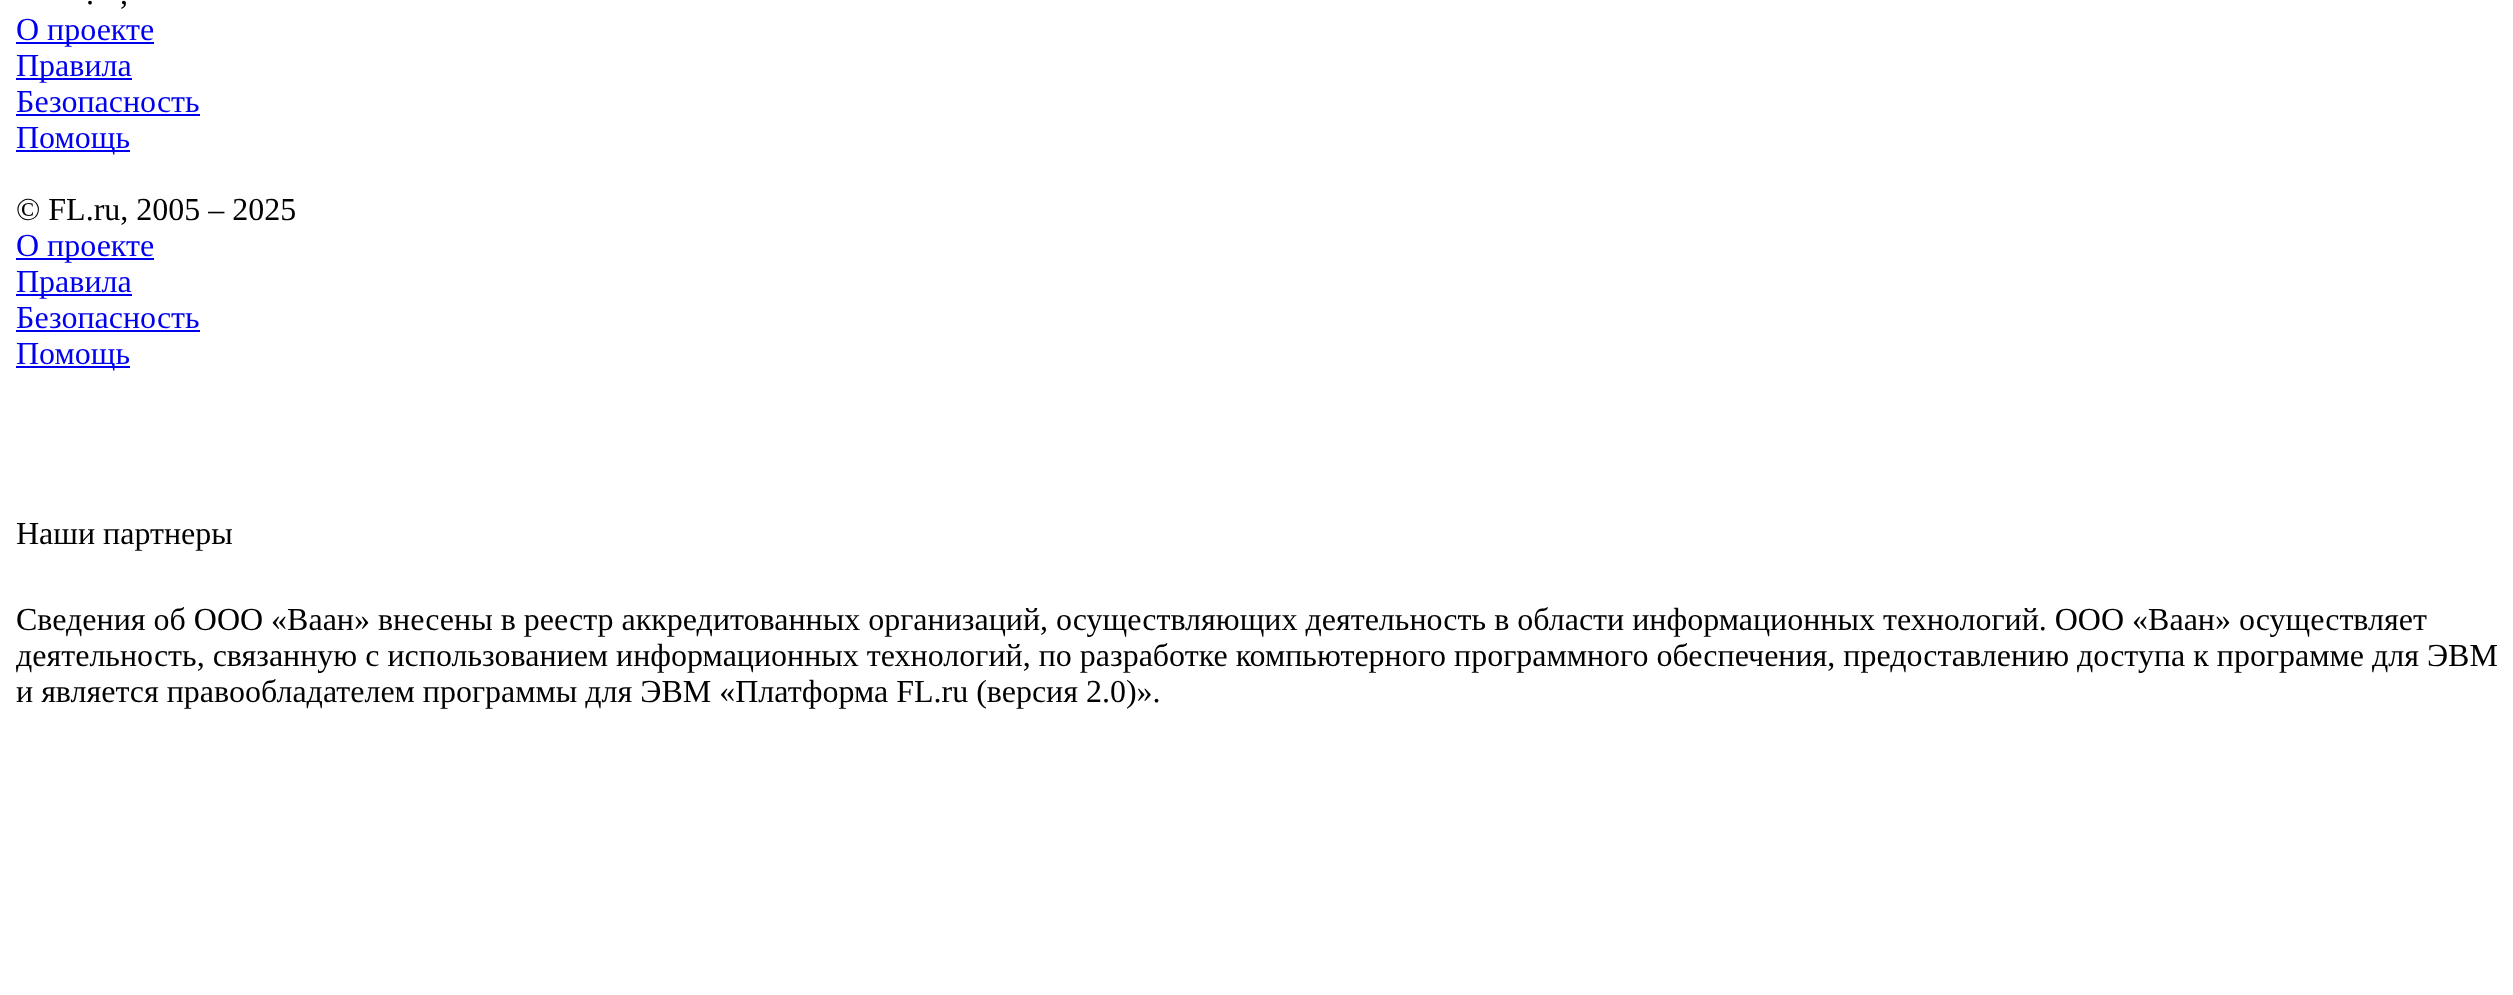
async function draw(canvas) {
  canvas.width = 2513
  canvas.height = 995
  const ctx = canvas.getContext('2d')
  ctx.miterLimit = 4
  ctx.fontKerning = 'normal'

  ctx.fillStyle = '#fff'
  ctx.fillRect(0, 0, 2513, 995)
  ctx.font = '32px Liberation Serif'
  ctx.fillStyle = '#000'
  ctx.fillText('.', 86, 4)
  ctx.fillText(',', 120, 4)
  ctx.fillStyle = '#00e'
  ctx.fillRect(16, 42, 138, 2)
  ctx.fillText('О проекте', 16, 40)
  ctx.fillRect(16, 78, 116, 2)
  ctx.fillText('Правила', 16, 76)
  ctx.fillText('Безопасность', 16, 112)
  ctx.fillRect(16, 114, 184, 2)
  ctx.fillRect(16, 150, 114, 2)
  ctx.fillText('Помощь', 16, 148)
  ctx.fillStyle = '#000'
  ctx.fillText('© FL.ru, 2005 – 2025', 16, 220)
  ctx.fillStyle = '#00e'
  ctx.fillRect(16, 258, 138, 2)
  ctx.fillText('О проекте', 16, 256)
  ctx.fillRect(16, 294, 116, 2)
  ctx.fillText('Правила', 16, 292)
  ctx.fillText('Безопасность', 16, 328)
  ctx.fillRect(16, 330, 184, 2)
  ctx.fillRect(16, 366, 114, 2)
  ctx.fillText('Помощь', 16, 364)
  ctx.fillStyle = '#000'
  ctx.fillText('Наши партнеры', 16, 544)
  ctx.fillText('Сведения об ООО «Ваан» внесены в реестр аккредитованных организаций, осуществляющих деятельность в области информационных технологий. ООО «Ваан» осуществляет', 16, 630)
  ctx.fillText('деятельность, связанную с использованием информационных технологий, по разработке компьютерного программного обеспечения, предоставлению доступа к программе для ЭВМ', 16, 666)
  ctx.fillText('и является правообладателем программы для ЭВМ «Платформа FL.ru (версия 2.0)».', 16, 702)
}

draw(document.querySelector('canvas'))
